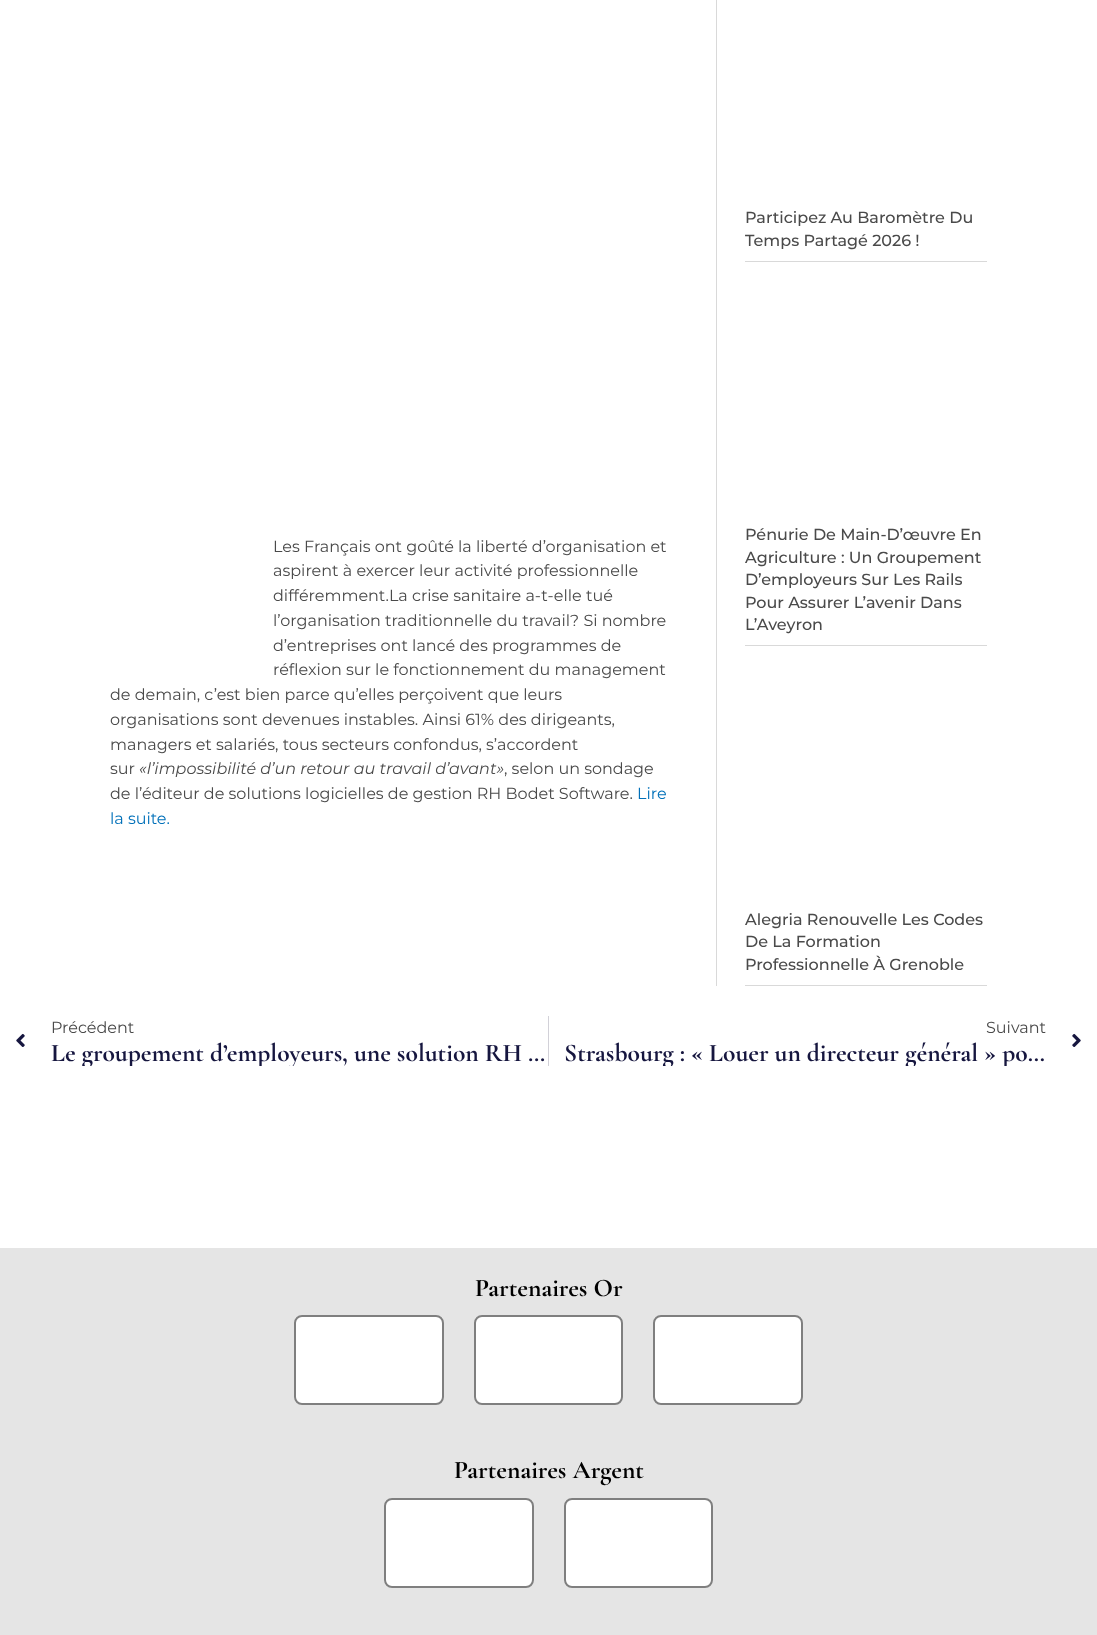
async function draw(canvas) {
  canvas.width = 1097
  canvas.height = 1635
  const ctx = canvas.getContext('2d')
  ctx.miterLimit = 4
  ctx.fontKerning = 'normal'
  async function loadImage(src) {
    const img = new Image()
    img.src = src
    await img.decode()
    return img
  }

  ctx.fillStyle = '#fff'
  ctx.fillRect(0, 0, 1097, 1635)
  ctx.fillStyle = '#d9d9d9'
  ctx.fillRect(716, 0, 1, 986)
  ctx.font = '16px Montserrat'
  ctx.fillStyle = '#4a4a4a'
  ctx.fillText('Les Français ont goûté la liberté d’organisation et', 273, 552)
  ctx.fillText('aspirent à exercer leur activité professionnelle', 273, 576)
  ctx.fillText('différemment.La crise sanitaire a-t-elle tué', 273, 601)
  ctx.fillText('l’organisation traditionnelle du travail? Si nombre', 273, 626)
  ctx.fillText('d’entreprises ont lancé des programmes de', 273, 651)
  ctx.fillText('réflexion sur le fonctionnement du management', 273, 675)
  ctx.fillText('de demain, c’est bien parce qu’elles perçoivent que leurs', 110, 700)
  ctx.fillText('organisations sont devenues instables. Ainsi 61% des dirigeants,', 110, 725)
  ctx.fillText('managers et salariés, tous secteurs confondus, s’accordent', 110, 750)
  ctx.fillText('sur', 110, 774)
  ctx.font = 'italic 16px Montserrat'
  ctx.fillText('«l’impossibilité d’un retour au travail d’avant»', 139, 774)
  ctx.font = '16px Montserrat'
  ctx.fillText(', selon un sondage', 504, 774)
  ctx.fillText('de l’éditeur de solutions logicielles de gestion RH Bodet Software.', 110, 799)
  ctx.fillStyle = '#0170b9'
  ctx.fillText('Lire', 637, 799)
  ctx.fillText('la suite.', 110, 824)
  ctx.fillStyle = '#d9d9d9'
  ctx.fillRect(745, 261, 242, 1)
  ctx.font = '500 16px Montserrat'
  ctx.fillStyle = '#4a4a4a'
  ctx.fillText('Participez Au Baromètre Du', 745, 223)
  ctx.save()
  ctx.beginPath()
  ctx.rect(745, 0, 242, 261)
  ctx.clip()
  ctx.fillText('Temps Partagé 2026 !', 745, 246)
  ctx.restore()
  ctx.fillStyle = '#d9d9d9'
  ctx.fillRect(745, 645, 242, 1)
  ctx.fillStyle = '#4a4a4a'
  ctx.fillText('Pénurie De Main-D’œuvre En', 745, 540)
  ctx.fillText('Agriculture : Un Groupement', 745, 563)
  ctx.fillText('D’employeurs Sur Les Rails', 745, 585)
  ctx.fillText('Pour Assurer L’avenir Dans', 745, 608)
  ctx.fillText('L’Aveyron', 745, 630)
  ctx.fillStyle = '#d9d9d9'
  ctx.fillRect(745, 985, 242, 1)
  ctx.fillStyle = '#4a4a4a'
  ctx.fillText('Alegria Renouvelle Les Codes', 745, 925)
  ctx.fillText('De La Formation', 745, 947)
  ctx.fillText('Professionnelle À Grenoble', 745, 970)
  ctx.drawImage(await loadImage('image0.png'), 16, 1033, 9, 14)
  ctx.font = '16px Montserrat'
  ctx.fillText('Précédent', 51, 1033)
  ctx.save()
  ctx.beginPath()
  ctx.rect(51, 1041, 497, 25)
  ctx.clip()
  ctx.font = 'bold 25.5px Cormorant Garamond'
  ctx.fillStyle = '#16163f'
  ctx.fillText('Le groupement d’employeurs, une solution RH …', 51, 1061)
  ctx.restore()
  ctx.fillStyle = '#d2d1d8'
  ctx.fillRect(548, 1016, 1, 50)
  ctx.fillStyle = '#4a4a4a'
  ctx.fillText('Suivant', 986, 1033)
  ctx.save()
  ctx.beginPath()
  ctx.rect(549, 1041, 497, 25)
  ctx.clip()
  ctx.font = 'bold 25.5px Cormorant Garamond'
  ctx.fillStyle = '#16163f'
  ctx.fillText('Strasbourg : « Louer un directeur général » po…', 564, 1061)
  ctx.restore()
  ctx.drawImage(await loadImage('image1.png'), 1072, 1033, 9, 14)
  ctx.fillStyle = '#e5e5e5'
  ctx.fillRect(0, 1248, 1097, 387)
  ctx.font = 'bold 25.5px Cormorant Garamond'
  ctx.fillStyle = '#000'
  ctx.fillText('Partenaires Or', 475, 1296)
  ctx.fillStyle = '#fff'
  ctx.beginPath()
  ctx.roundRect(294, 1315, 150, 90, 8)
  ctx.fill()
  ctx.beginPath()
  ctx.roundRect(295, 1316, 148, 88, 7)
  ctx.strokeStyle = '#00000080'
  ctx.lineWidth = 2
  ctx.stroke()
  ctx.beginPath()
  ctx.roundRect(474, 1315, 149, 90, 8)
  ctx.fill()
  ctx.beginPath()
  ctx.roundRect(475, 1316, 147, 88, 7)
  ctx.stroke()
  ctx.beginPath()
  ctx.roundRect(653, 1315, 150, 90, 8)
  ctx.fill()
  ctx.beginPath()
  ctx.roundRect(654, 1316, 148, 88, 7)
  ctx.stroke()
  ctx.fillStyle = '#000'
  ctx.fillText('Partenaires Argent', 454, 1478)
  ctx.fillStyle = '#fff'
  ctx.beginPath()
  ctx.roundRect(384, 1498, 150, 90, 8)
  ctx.fill()
  ctx.beginPath()
  ctx.roundRect(385, 1499, 148, 88, 7)
  ctx.stroke()
  ctx.beginPath()
  ctx.roundRect(564, 1498, 149, 90, 8)
  ctx.fill()
  ctx.beginPath()
  ctx.roundRect(565, 1499, 147, 88, 7)
  ctx.stroke()
}

draw(document.querySelector('canvas'))
